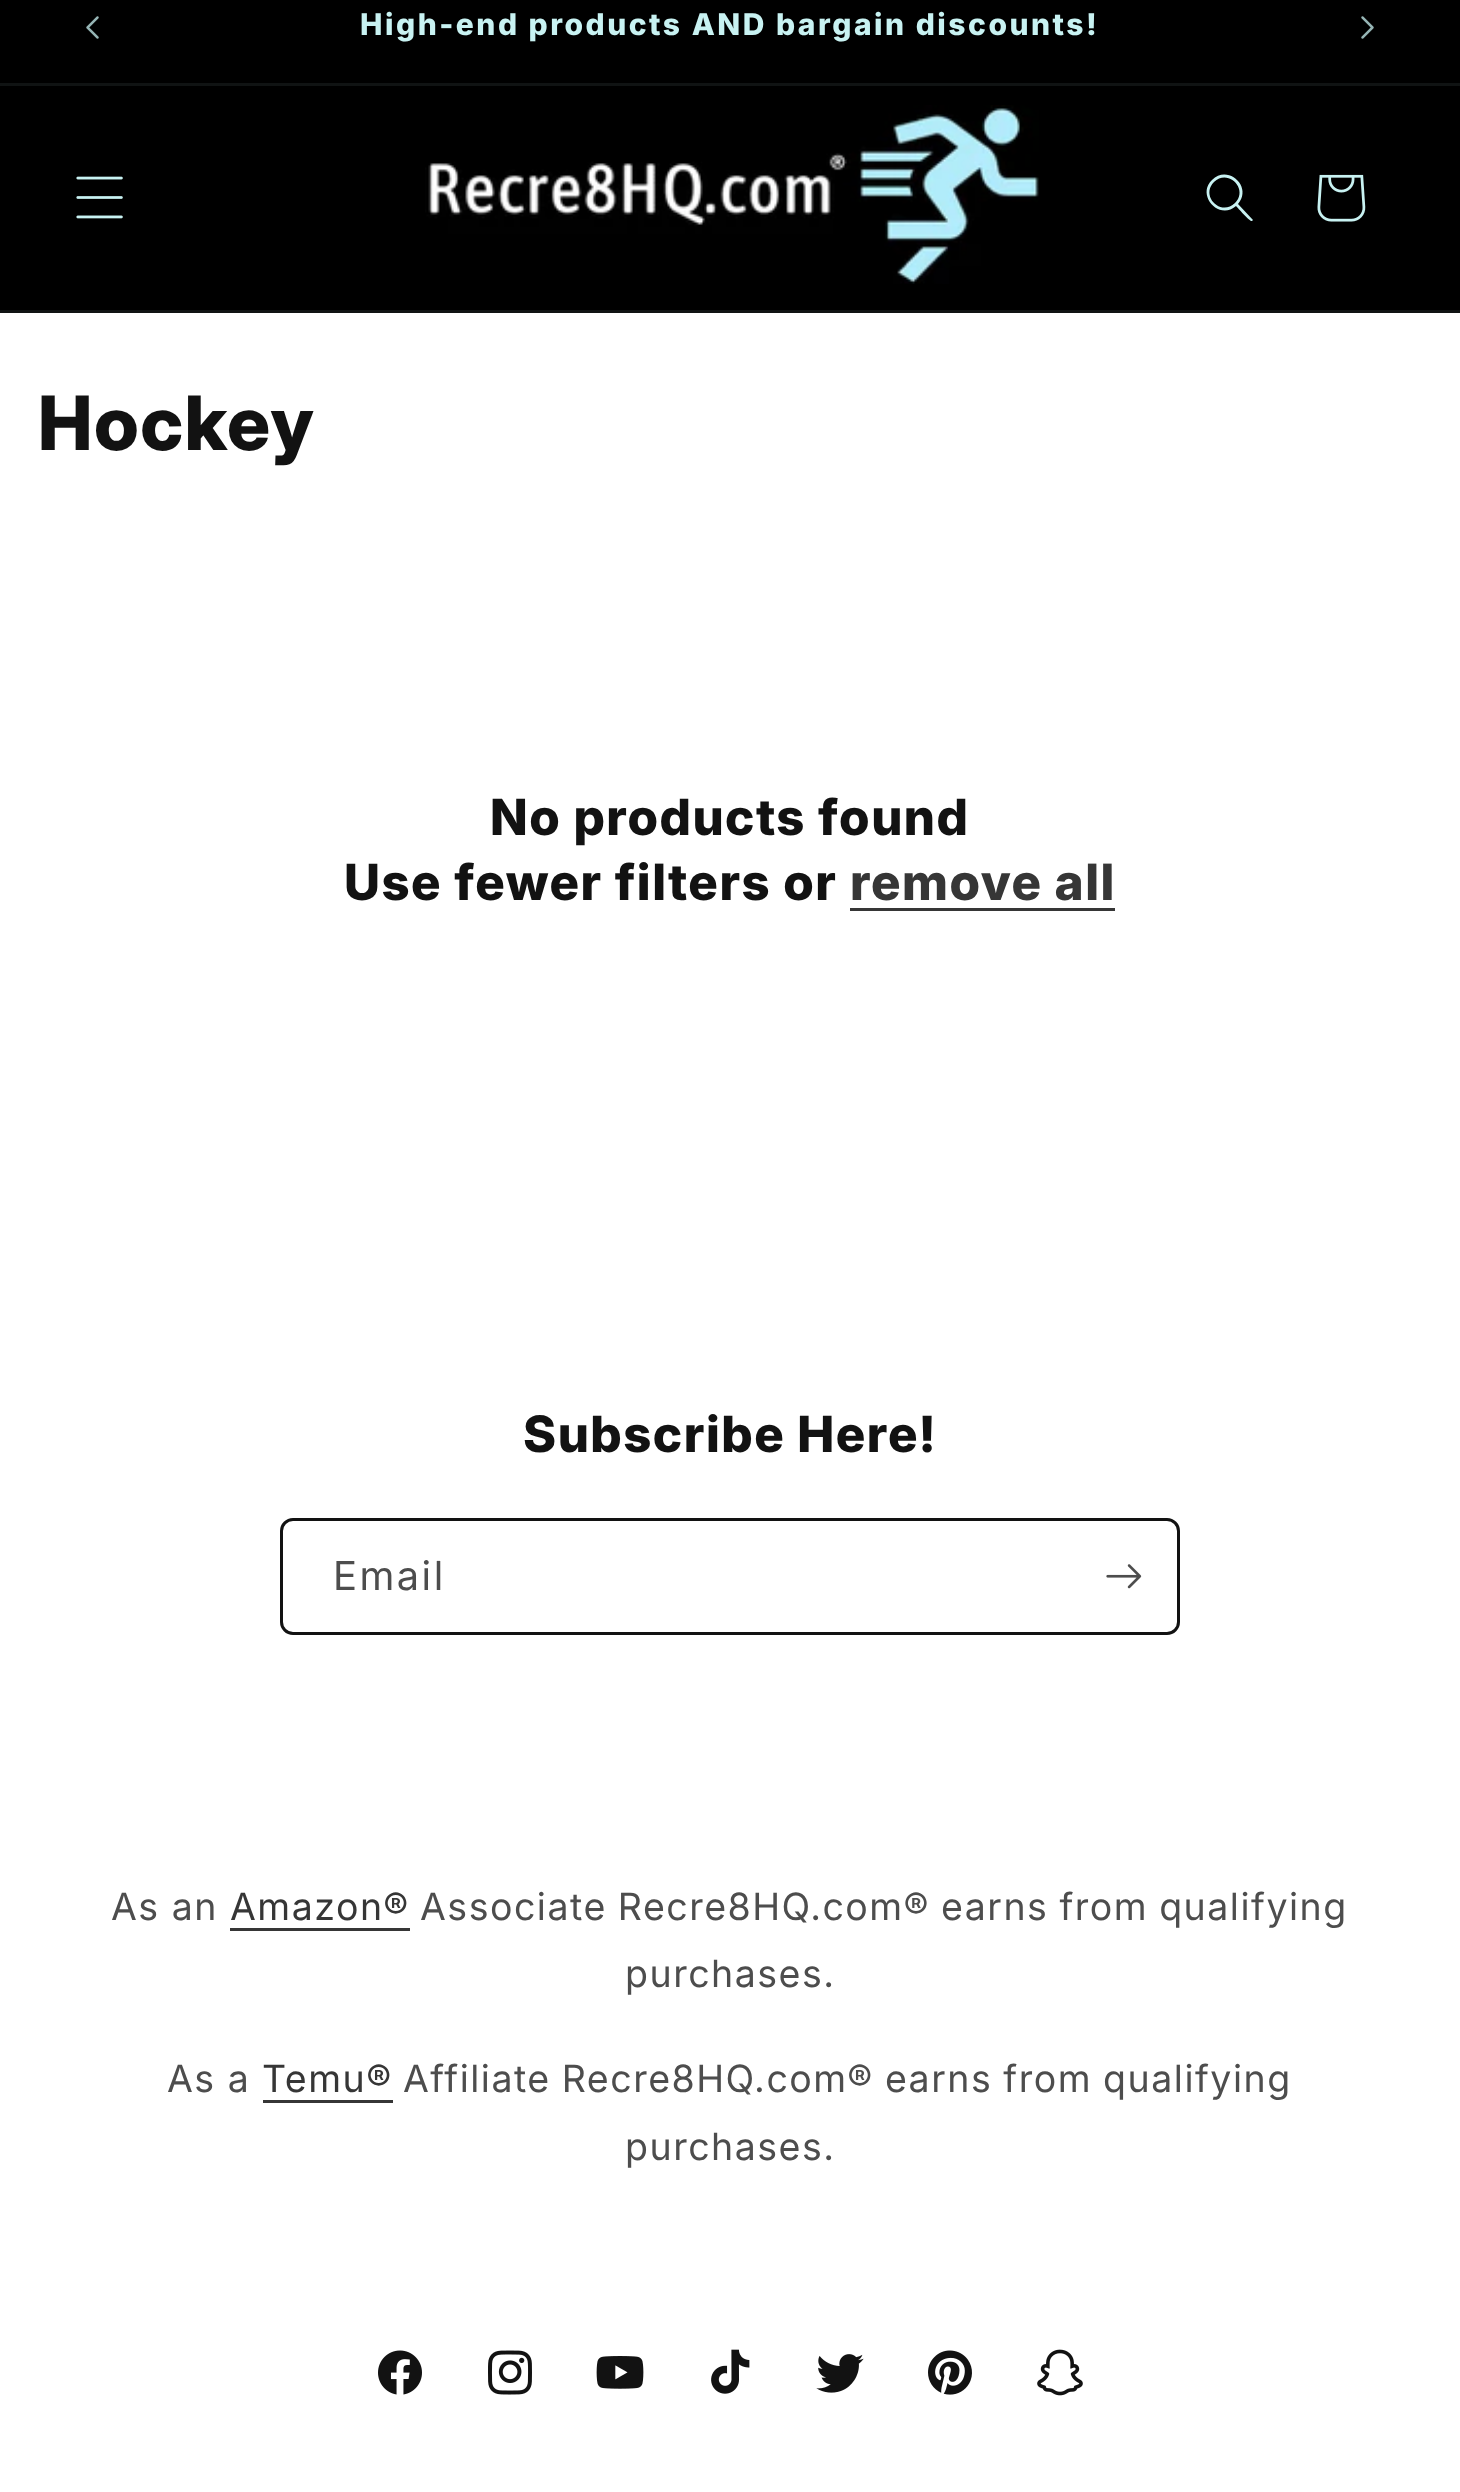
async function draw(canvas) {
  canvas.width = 1460
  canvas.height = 2492
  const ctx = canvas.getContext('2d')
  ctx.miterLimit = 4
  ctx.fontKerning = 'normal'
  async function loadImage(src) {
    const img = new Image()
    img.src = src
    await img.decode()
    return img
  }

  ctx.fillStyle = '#fff'
  ctx.fillRect(0, 0, 1460, 2492)
  ctx.fillStyle = '#000'
  ctx.fillRect(0, 0, 1460, 83)
  ctx.fillStyle = '#101313'
  ctx.fillRect(0, 83, 1460, 3)
  ctx.drawImage(await loadImage('image0.png'), 86, 16, 13, 23)
  ctx.letterSpacing = '2.5px'
  ctx.font = '800 30px "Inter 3"'
  ctx.fillStyle = '#c8f2f2'
  ctx.fillText('High-end products AND bargain discounts!', 360, 35)
  ctx.drawImage(await loadImage('image1.png'), 1361, 16, 13, 23)
  ctx.fillStyle = '#000'
  ctx.fillRect(0, 86, 1460, 224)
  ctx.fillStyle = '#101313'
  ctx.fillRect(0, 310, 1460, 3)
  ctx.drawImage(await loadImage('image2.png'), 76, 176, 47, 43)
  ctx.drawImage(await loadImage('image3.png'), 425, 105, 614, 179)
  ctx.fillStyle = '#c8f2f2'
  ctx.beginPath()
  ctx.moveTo(1235, 203)
  ctx.bezierCurveTo(1221, 217, 1200, 196, 1214, 182)
  ctx.bezierCurveTo(1228, 168, 1249, 189, 1235, 203)
  ctx.closePath()
  ctx.moveTo(1236, 206)
  ctx.bezierCurveTo(1219, 221, 1196, 195, 1212, 180)
  ctx.bezierCurveTo(1228, 164, 1253, 187, 1238, 204)
  ctx.lineTo(1253, 220)
  ctx.lineTo(1252, 221)
  ctx.bezierCurveTo(1250, 222, 1238, 208, 1236, 206)
  ctx.closePath()
  ctx.fill('evenodd')
  ctx.drawImage(await loadImage('image4.png'), 1317, 174, 49, 48)
  ctx.letterSpacing = '1.5px'
  ctx.font = '800 75px Inter'
  ctx.fillStyle = '#121212'
  ctx.fillText('Hockey', 38, 450)
  ctx.font = '800 50px "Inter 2"'
  ctx.fillText('No products found', 490, 835)
  ctx.fillText('Use fewer filters or', 344, 900)
  ctx.fillStyle = '#363636'
  ctx.fillText('remove all', 850, 900)
  ctx.fillRect(850, 908, 265, 3)
  ctx.fillStyle = '#121212'
  ctx.fillText('Subscribe Here!', 523, 1452)
  ctx.beginPath()
  ctx.roundRect(281.5, 1519.5, 897, 114, 11.5)
  ctx.strokeStyle = '#121212'
  ctx.lineWidth = 3
  ctx.stroke()
  ctx.letterSpacing = '2.5px'
  ctx.font = '40px Inter'
  ctx.fillStyle = '#4d4d4d'
  ctx.fillText('Email', 333, 1590)
  ctx.drawImage(await loadImage('image5.png'), 1106, 1564, 36, 25)
  ctx.letterSpacing = '1.5px'
  ctx.font = '37.5px "Inter 2"'
  ctx.fillText('As an', 111, 1920)
  ctx.fillStyle = '#363636'
  ctx.fillText('Amazon®', 230, 1920)
  ctx.fillRect(230, 1928, 180, 3)
  ctx.wordSpacing = '-1px'
  ctx.fillStyle = '#4d4d4d'
  ctx.fillText('Associate Recre8HQ.com® earns from qualifying', 420, 1920)
  ctx.wordSpacing = '0px'
  ctx.fillText('purchases.', 625, 1987)
  ctx.fillText('As a', 167, 2092)
  ctx.fillStyle = '#363636'
  ctx.fillText('Temu®', 262, 2092)
  ctx.fillRect(263, 2100, 130, 3)
  ctx.wordSpacing = '-1px'
  ctx.fillStyle = '#4d4d4d'
  ctx.fillText('Affiliate Recre8HQ.com® earns from qualifying', 403, 2092)
  ctx.wordSpacing = '0px'
  ctx.fillText('purchases.', 625, 2160)
  ctx.drawImage(await loadImage('image6.png'), 378, 2350, 44, 45)
  ctx.drawImage(await loadImage('image7.png'), 488, 2350, 44, 45)
  ctx.drawImage(await loadImage('image8.png'), 596, 2356, 48, 33)
  ctx.drawImage(await loadImage('image9.png'), 711, 2349, 39, 45)
  ctx.drawImage(await loadImage('image10.png'), 816, 2354, 48, 39)
  ctx.drawImage(await loadImage('image11.png'), 928, 2350, 44, 45)
  ctx.drawImage(await loadImage('image12.png'), 1037, 2349, 46, 47)
}

draw(document.querySelector('canvas'))
